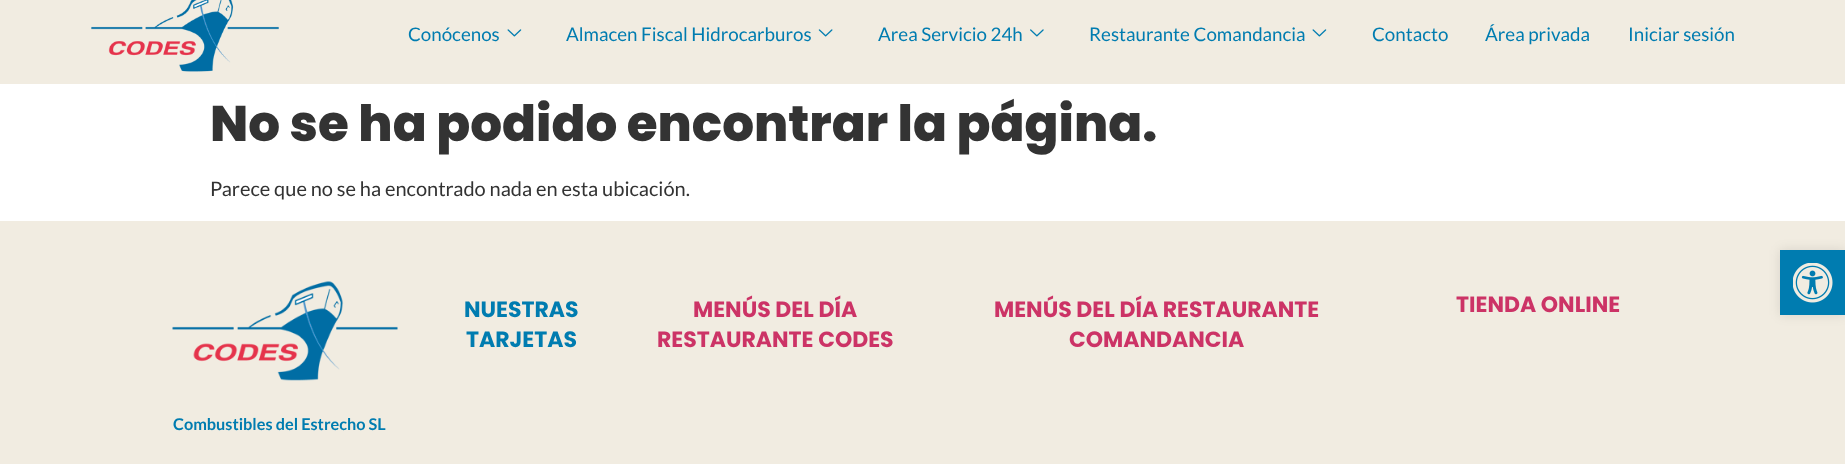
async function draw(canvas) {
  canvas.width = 1845
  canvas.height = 464
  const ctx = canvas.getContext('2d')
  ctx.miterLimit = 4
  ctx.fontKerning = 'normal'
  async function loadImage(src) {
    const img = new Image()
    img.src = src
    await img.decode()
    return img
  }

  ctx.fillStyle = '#fff'
  ctx.fillRect(0, 0, 1845, 464)
  ctx.fillStyle = '#f1ece1'
  ctx.fillRect(0, 0, 1845, 84)
  ctx.drawImage(await loadImage('image0.png'), 91, 0, 188, 72)
  ctx.font = '18.75px Lato'
  ctx.fillStyle = '#007cb0'
  ctx.fillText('Conócenos', 408, 41)
  ctx.drawImage(await loadImage('image1.png'), 507, 29, 15, 8)
  ctx.fillText('Almacen Fiscal Hidrocarburos', 566, 41)
  ctx.drawImage(await loadImage('image2.png'), 818, 29, 15, 8)
  ctx.fillText('Area Servicio 24h', 878, 41)
  ctx.drawImage(await loadImage('image3.png'), 1030, 29, 14, 8)
  ctx.fillText('Restaurante Comandancia', 1089, 41)
  ctx.drawImage(await loadImage('image1.png'), 1312, 29, 15, 8)
  ctx.fillText('Contacto', 1372, 41)
  ctx.fillText('Área privada', 1485, 41)
  ctx.fillText('Iniciar sesión', 1628, 41)
  ctx.font = '800 50px Poppins'
  ctx.fillStyle = '#333'
  ctx.fillText('No se ha podido encontrar la página.', 210, 141)
  ctx.font = '20px Lato'
  ctx.fillText('Parece que no se ha encontrado nada en esta ubicación.', 210, 196)
  ctx.fillStyle = '#f1ece1'
  ctx.fillRect(0, 221, 1845, 243)
  ctx.fillStyle = '#0000001a'
  ctx.filter = 'blur(6px)'
  ctx.beginPath()
  ctx.rect(1780, 250, 65, 65)
  ctx.fill()
  ctx.filter = 'none'
  ctx.fillStyle = '#007cb0'
  ctx.fillRect(1780, 250, 65, 65)
  ctx.drawImage(await loadImage('image4.png'), 1793, 263, 40, 40)
  ctx.font = 'bold 22px Poppins'
  ctx.fillText('NUESTRAS', 464, 317)
  ctx.fillText('TARJETAS', 466, 347)
  ctx.fillStyle = '#c36'
  ctx.fillText('MENÚS DEL DÍA', 693, 317)
  ctx.fillText('RESTAURANTE CODES', 657, 347)
  ctx.fillText('MENÚS DEL DÍA RESTAURANTE', 994, 317)
  ctx.fillText('COMANDANCIA', 1069, 347)
  ctx.fillText('TIENDA ONLINE', 1456, 312)
  ctx.drawImage(await loadImage('image5.png'), 172, 281, 226, 100)
  ctx.font = 'bold 16.25px Lato'
  ctx.fillStyle = '#007cb0'
  ctx.fillText('Combustibles del Estrecho SL', 173, 430)
}

draw(document.querySelector('canvas'))
